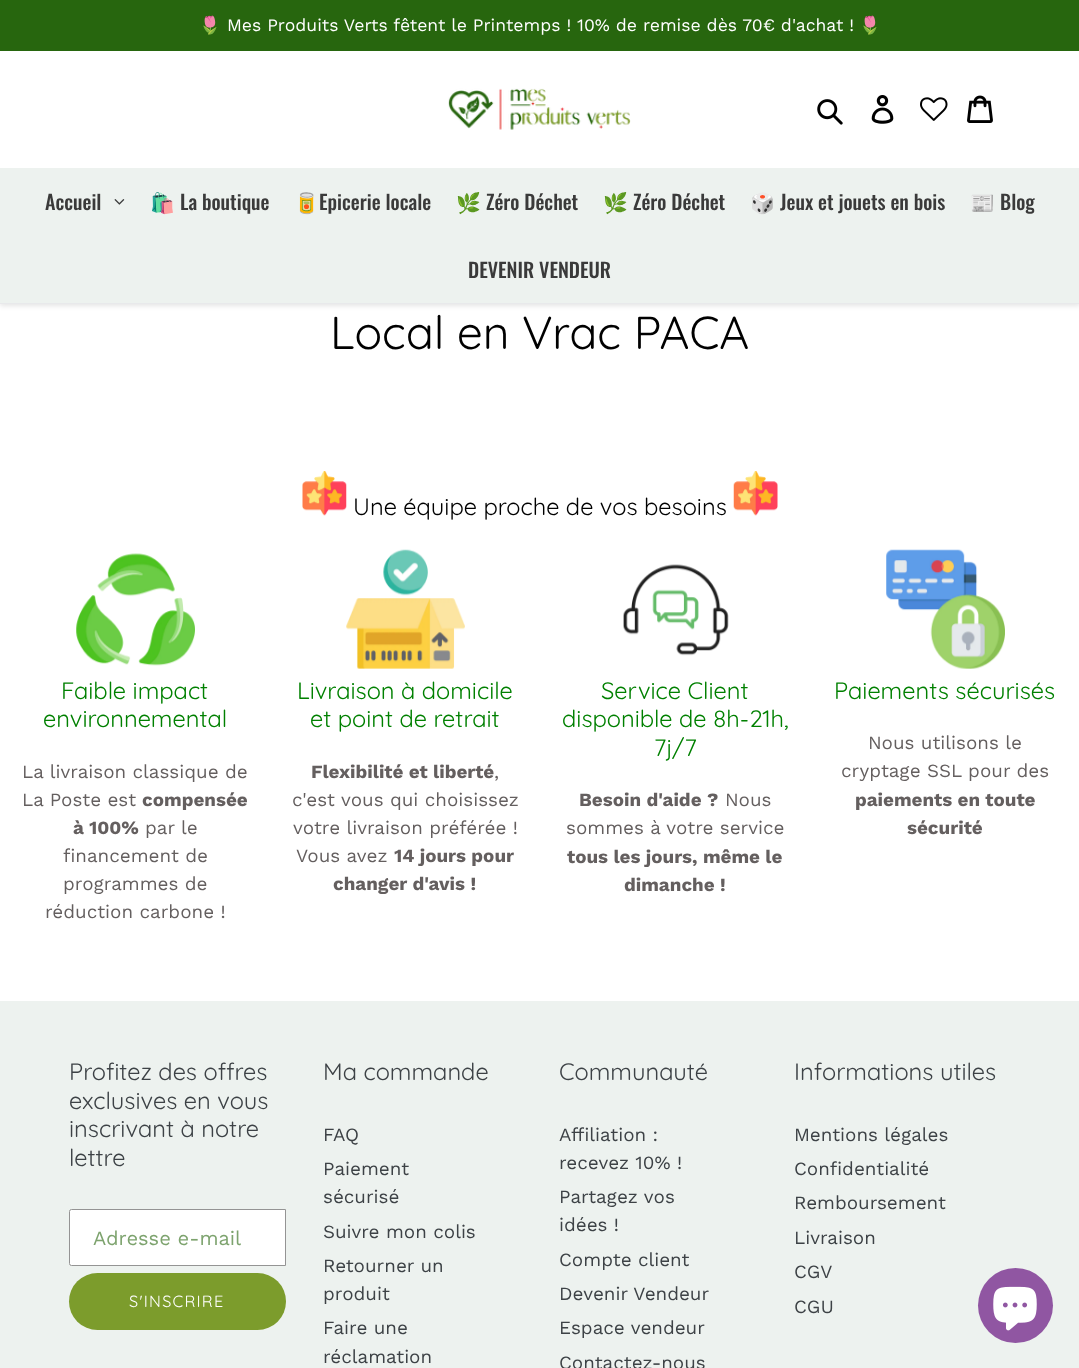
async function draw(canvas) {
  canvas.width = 1079
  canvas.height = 1368
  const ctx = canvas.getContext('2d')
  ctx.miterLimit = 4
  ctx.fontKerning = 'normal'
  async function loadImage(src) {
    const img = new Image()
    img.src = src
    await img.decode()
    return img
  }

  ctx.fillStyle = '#fff'
  ctx.fillRect(0, 0, 1079, 1368)
  ctx.fillStyle = '#0000001a'
  ctx.filter = 'blur(2.5px)'
  ctx.beginPath()
  ctx.rect(0, 3, 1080, 303)
  ctx.fill()
  ctx.filter = 'none'
  ctx.fillStyle = '#fff'
  ctx.fillRect(0, 51, 1079, 117)
  ctx.fillStyle = '#27660e'
  ctx.fillRect(0, 0, 1079, 51)
  ctx.font = '17.5px Noto Color Emoji'
  ctx.fillStyle = '#fff'
  ctx.fillText('🌷', 199, 31)
  ctx.font = '17.5px Work Sans'
  ctx.fillText('Mes Produits Verts fêtent le Printemps ! 10% de remise dès 70€ d\'achat !', 227, 31)
  ctx.font = '17.5px Noto Color Emoji'
  ctx.fillText('🌷', 859, 31)
  ctx.drawImage(await loadImage('image0.png'), 448, 88, 183, 42)
  ctx.drawImage(await loadImage('image1.png'), 817, 99, 26, 26)
  ctx.drawImage(await loadImage('image2.png'), 871, 95, 23, 29)
  ctx.drawImage(await loadImage('image3.png'), 920, 97, 28, 24)
  ctx.drawImage(await loadImage('image4.png'), 967, 95, 26, 28)
  ctx.fillStyle = '#e8e9eb'
  ctx.fillRect(0, 303, 1079, 1)
  ctx.fillStyle = '#edf2ef'
  ctx.fillRect(0, 168, 1079, 135)
  ctx.font = '500 20px Oswald'
  ctx.fillStyle = '#3a3a3a'
  ctx.fillText('Accueil', 45, 210)
  ctx.drawImage(await loadImage('image5.png'), 114, 199, 11, 6)
  ctx.font = '20px Noto Color Emoji'
  ctx.fillText('🛍️', 150, 210)
  ctx.font = '500 20px Oswald'
  ctx.fillText('La boutique', 180, 210)
  ctx.font = '20px Noto Color Emoji'
  ctx.fillText('🥫', 294, 210)
  ctx.font = '500 20px Oswald'
  ctx.fillText('Epicerie locale', 319, 210)
  ctx.font = '20px Noto Color Emoji'
  ctx.fillText('🌿', 456, 210)
  ctx.font = '500 20px Oswald'
  ctx.fillText('Zéro Déchet', 486, 210)
  ctx.font = '20px Noto Color Emoji'
  ctx.fillText('🌿', 603, 210)
  ctx.font = '500 20px Oswald'
  ctx.fillText('Zéro Déchet', 633, 210)
  ctx.font = '20px Noto Color Emoji'
  ctx.fillText('🎲', 750, 210)
  ctx.font = '500 20px Oswald'
  ctx.fillText('Jeux et jouets en bois', 780, 210)
  ctx.font = '20px Noto Color Emoji'
  ctx.fillText('📰', 970, 210)
  ctx.font = '500 20px Oswald'
  ctx.fillText('Blog', 1000, 210)
  ctx.fillText('DEVENIR VENDEUR', 468, 278)
  ctx.font = '46.25px Quicksand'
  ctx.fillStyle = '#000'
  ctx.fillText('Local en Vrac PACA', 330, 349)
  ctx.drawImage(await loadImage('image6.png'), 302, 471, 45, 45)
  ctx.font = '23.75px Quicksand'
  ctx.fillText('Une équipe proche de vos besoins', 353, 515)
  ctx.drawImage(await loadImage('image7.png'), 733, 471, 45, 45)
  ctx.drawImage(await loadImage('image8.png'), 76, 553, 119, 113)
  ctx.fillStyle = '#008000'
  ctx.fillText('Faible impact', 61, 699)
  ctx.fillText('environnemental', 43, 727)
  ctx.font = '18.75px Work Sans'
  ctx.fillStyle = '#645f5f'
  ctx.fillText('La livraison classique de', 22, 778)
  ctx.fillText('La Poste est', 22, 806)
  ctx.font = 'bold 18.75px Work Sans'
  ctx.fillText('compensée', 142, 806)
  ctx.fillText('à 100%', 73, 834)
  ctx.font = '18.75px Work Sans'
  ctx.fillText('par le', 145, 834)
  ctx.fillText('financement de', 63, 862)
  ctx.fillText('programmes de', 63, 890)
  ctx.fillText('réduction carbone !', 45, 918)
  ctx.drawImage(await loadImage('image9.png'), 346, 549, 119, 120)
  ctx.font = '23.75px Quicksand'
  ctx.fillStyle = '#008000'
  ctx.fillText('Livraison à domicile', 297, 699)
  ctx.fillText('et point de retrait', 310, 727)
  ctx.font = 'bold 18.75px Work Sans'
  ctx.fillStyle = '#645f5f'
  ctx.fillText('Flexibilité et liberté', 311, 778)
  ctx.font = '18.75px Work Sans'
  ctx.fillText(',', 494, 778)
  ctx.fillText('c\'est vous qui choisissez', 292, 806)
  ctx.fillText('votre livraison préférée !', 293, 834)
  ctx.fillText('Vous avez', 296, 862)
  ctx.font = 'bold 18.75px Work Sans'
  ctx.fillText('14 jours pour', 394, 862)
  ctx.fillText('changer d\'avis !', 333, 890)
  ctx.drawImage(await loadImage('image10.png'), 623, 564, 106, 92)
  ctx.font = '23.75px Quicksand'
  ctx.fillStyle = '#008000'
  ctx.fillText('Service Client', 601, 699)
  ctx.fillText('disponible de 8h-21h,', 562, 727)
  ctx.fillText('7j/7', 654, 756)
  ctx.font = 'bold 18.75px Work Sans'
  ctx.fillStyle = '#645f5f'
  ctx.fillText('Besoin d\'aide ?', 579, 806)
  ctx.font = '18.75px Work Sans'
  ctx.fillText('Nous', 725, 806)
  ctx.fillText('sommes à votre service', 566, 834)
  ctx.font = 'bold 18.75px Work Sans'
  ctx.fillText('tous les jours, même le', 567, 863)
  ctx.fillText('dimanche !', 624, 891)
  ctx.drawImage(await loadImage('image11.png'), 886, 549, 119, 120)
  ctx.font = '23.75px Quicksand'
  ctx.fillStyle = '#008000'
  ctx.fillText('Paiements sécurisés', 834, 699)
  ctx.font = '18.75px Work Sans'
  ctx.fillStyle = '#645f5f'
  ctx.fillText('Nous utilisons le', 868, 749)
  ctx.fillText('cryptage SSL pour des', 841, 777)
  ctx.font = 'bold 18.75px Work Sans'
  ctx.fillText('paiements en toute', 855, 806)
  ctx.fillText('sécurité', 907, 834)
  ctx.fillStyle = '#edf2ef'
  ctx.fillRect(0, 1001, 1079, 367)
  ctx.font = '23.75px Quicksand'
  ctx.fillStyle = '#3d4246'
  ctx.fillText('Profitez des offres', 69, 1080)
  ctx.fillText('exclusives en vous', 69, 1109)
  ctx.fillText('inscrivant à notre', 69, 1137)
  ctx.fillText('lettre', 69, 1166)
  ctx.fillStyle = '#fff'
  ctx.beginPath()
  ctx.roundRect(69.5, 1209.5, 216, 56, [2, 0, 0, 2])
  ctx.fill()
  ctx.strokeStyle = '#949494'
  ctx.stroke()
  ctx.font = '20px Work Sans'
  ctx.fillStyle = '#7da36e'
  ctx.fillText('Adresse e-mail', 93, 1245)
  ctx.fillStyle = '#7c9c2c'
  ctx.beginPath()
  ctx.roundRect(69, 1273, 217, 57, 28.5)
  ctx.fill()
  ctx.letterSpacing = '1.25px'
  ctx.font = '16.25px Quicksand'
  ctx.fillStyle = '#fff'
  ctx.fillText('S\'INSCRIRE', 129, 1307)
  ctx.letterSpacing = '0px'
  ctx.font = '23.75px Quicksand'
  ctx.fillStyle = '#3d4246'
  ctx.fillText('Ma commande', 323, 1080)
  ctx.font = '18.75px Work Sans'
  ctx.fillText('FAQ', 323, 1141)
  ctx.fillText('Paiement', 323, 1175)
  ctx.fillText('sécurisé', 323, 1203)
  ctx.fillText('Suivre mon colis', 323, 1238)
  ctx.fillText('Retourner un', 323, 1272)
  ctx.fillText('produit', 323, 1300)
  ctx.fillText('Faire une', 323, 1334)
  ctx.fillText('réclamation', 323, 1363)
  ctx.font = '23.75px Quicksand'
  ctx.fillText('Communauté', 559, 1080)
  ctx.font = '18.75px Work Sans'
  ctx.fillText('Affiliation :', 559, 1141)
  ctx.fillText('recevez 10% !', 559, 1169)
  ctx.fillText('Partagez vos', 559, 1203)
  ctx.fillText('idées !', 559, 1231)
  ctx.fillText('Compte client', 559, 1266)
  ctx.fillText('Devenir Vendeur', 559, 1300)
  ctx.fillText('Espace vendeur', 559, 1334)
  ctx.fillText('Contactez-nous', 559, 1369)
  ctx.font = '23.75px Quicksand'
  ctx.fillText('Informations utiles', 794, 1080)
  ctx.font = '18.75px Work Sans'
  ctx.fillText('Mentions légales', 794, 1141)
  ctx.fillText('Confidentialité', 794, 1175)
  ctx.fillText('Remboursement', 794, 1209)
  ctx.fillText('Livraison', 794, 1244)
  ctx.fillText('CGV', 794, 1278)
  ctx.fillText('CGU', 794, 1313)
  ctx.fillStyle = '#9056a2'
  ctx.beginPath()
  ctx.arc(1015.5, 1305.5, 37.5, 0, 2 * Math.PI)
  ctx.fill()
  ctx.drawImage(await loadImage('image12.png'), 993, 1286, 44, 45)
}

draw(document.querySelector('canvas'))
